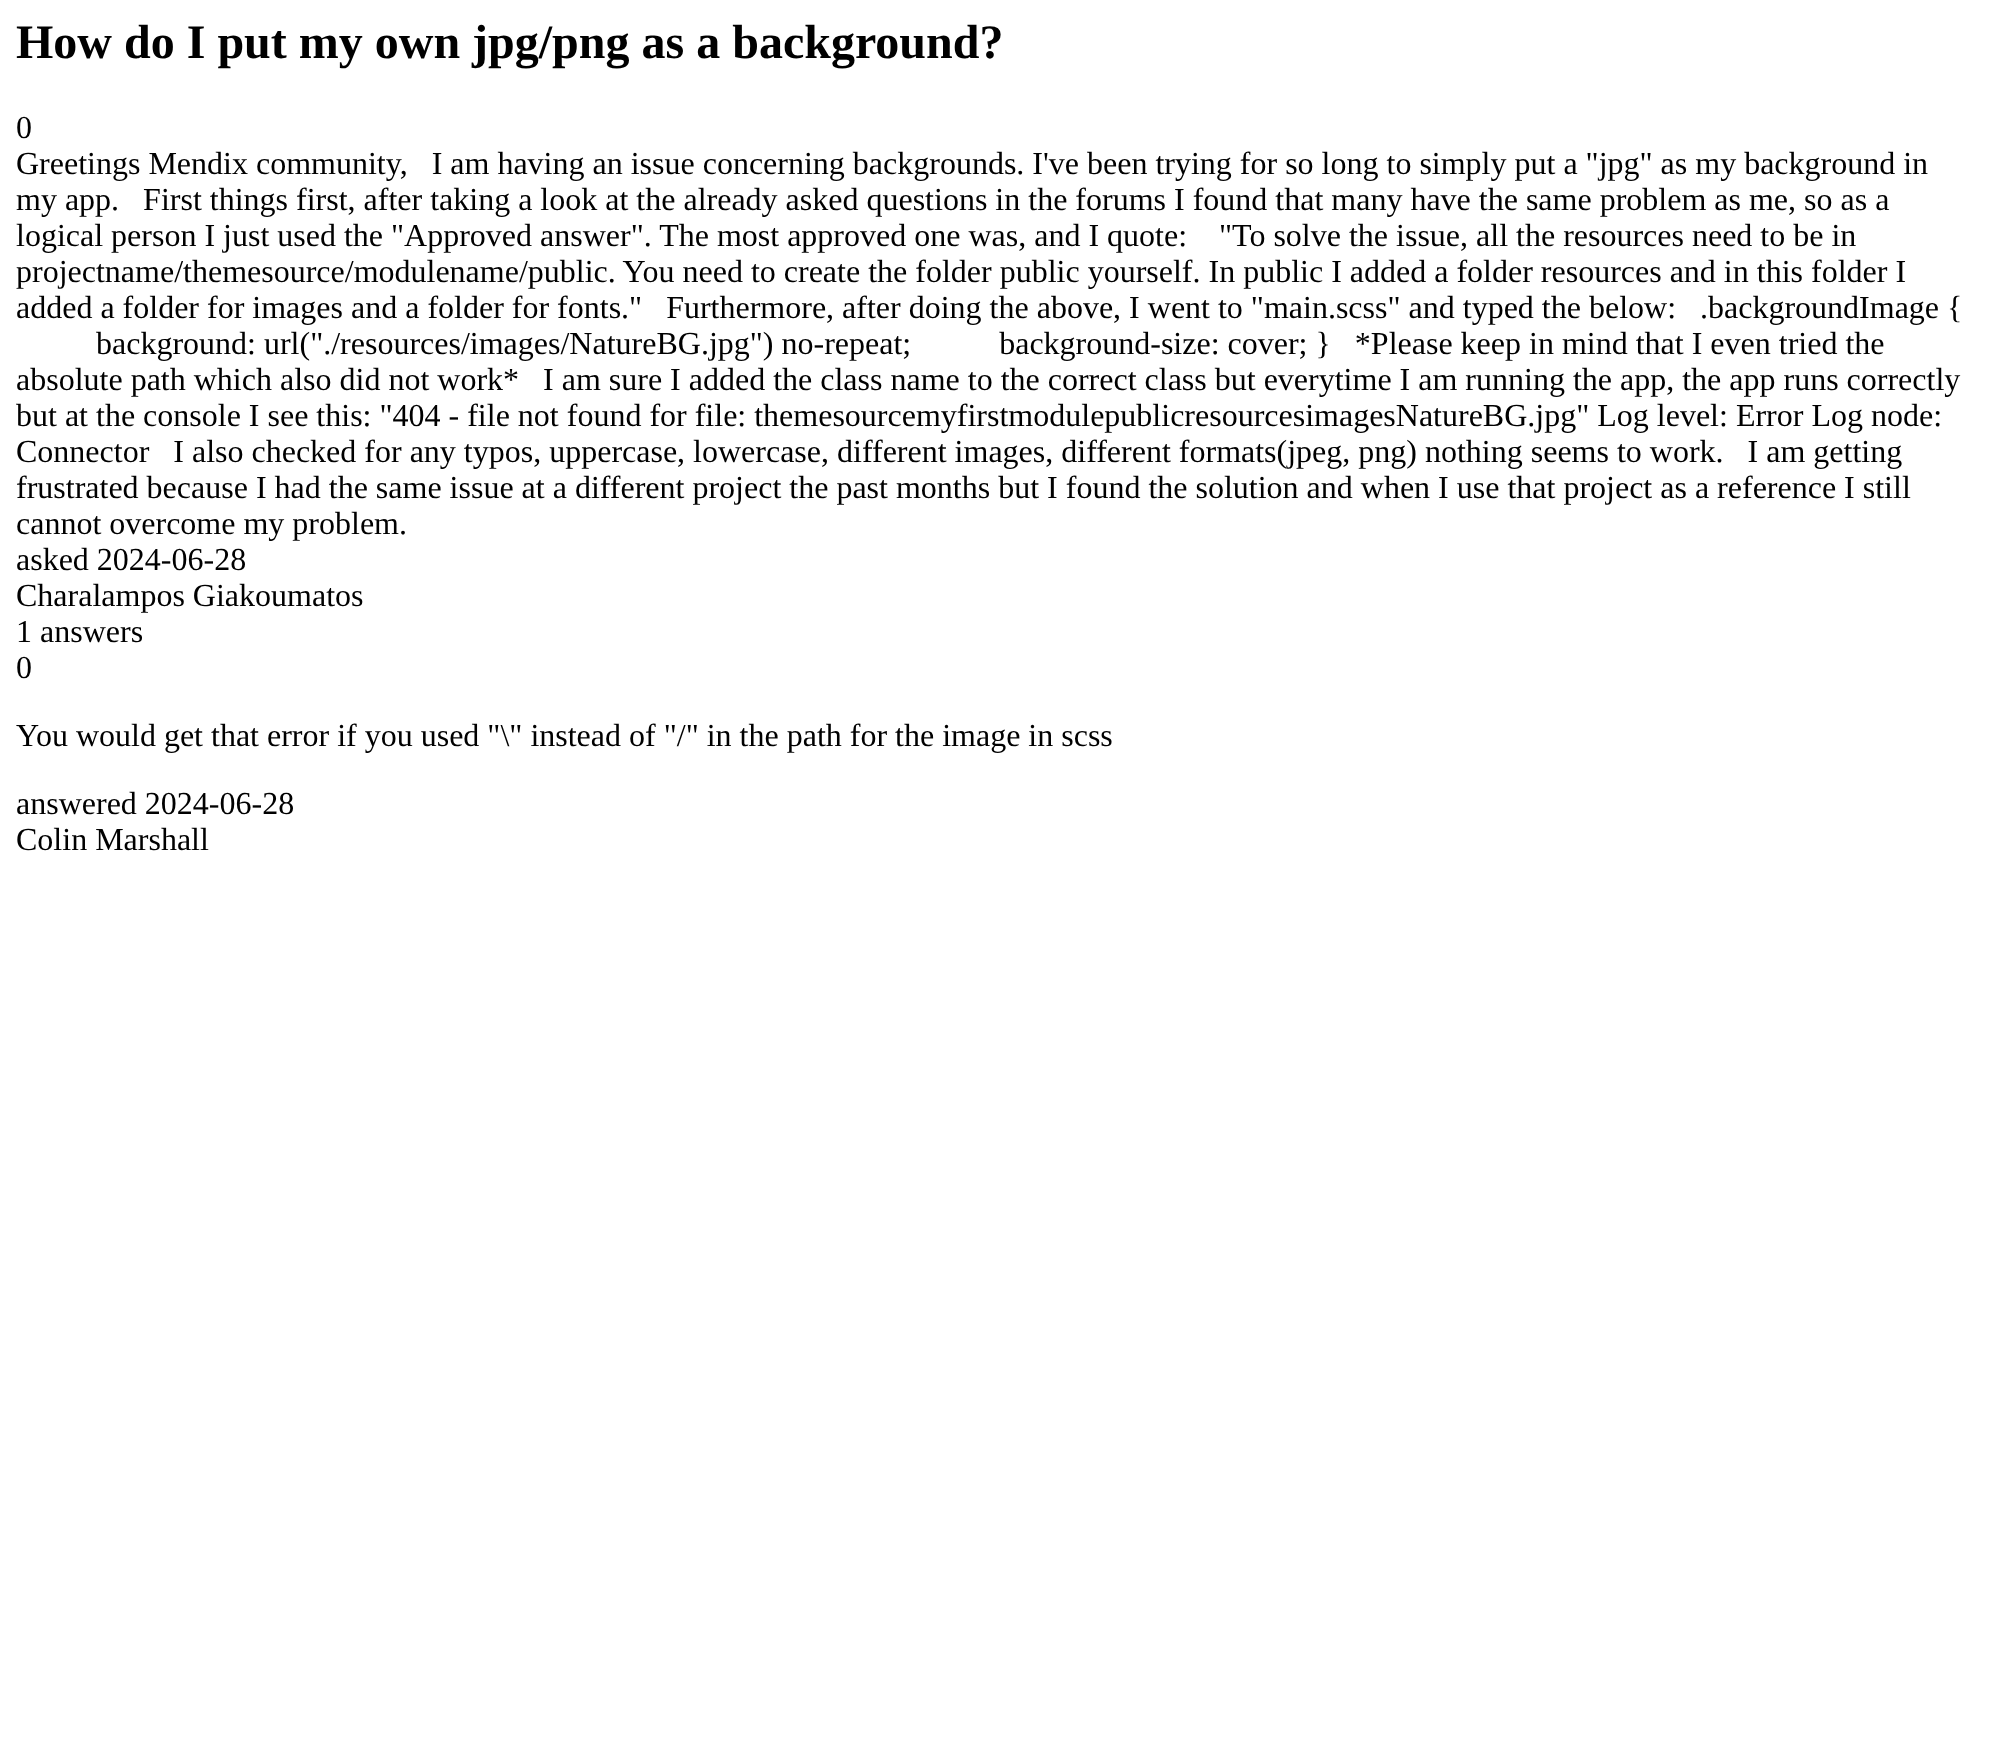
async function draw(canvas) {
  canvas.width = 1991
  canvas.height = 1762
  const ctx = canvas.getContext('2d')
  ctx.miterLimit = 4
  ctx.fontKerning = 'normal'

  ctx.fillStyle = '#fff'
  ctx.fillRect(0, 0, 1991, 1762)
  ctx.font = 'bold 48px Liberation Serif'
  ctx.fillStyle = '#000'
  ctx.fillText('How do I put my own jpg/png as a background?', 16, 58)
  ctx.font = '32px Liberation Serif'
  ctx.fillText('0', 16, 138)
  ctx.fillText('Greetings Mendix community,   I am having an issue concerning backgrounds. I\'ve been trying for so long to simply put a "jpg" as my background in', 16, 174)
  ctx.fillText('my app.   First things first, after taking a look at the already asked questions in the forums I found that many have the same problem as me, so as a', 16, 210)
  ctx.fillText('logical person I just used the "Approved answer". The most approved one was, and I quote:    "To solve the issue, all the resources need to be in', 16, 246)
  ctx.fillText('projectname/themesource/modulename/public. You need to create the folder public yourself. In public I added a folder resources and in this folder I', 16, 282)
  ctx.fillText('added a folder for images and a folder for fonts."   Furthermore, after doing the above, I went to "main.scss" and typed the below:   .backgroundImage {', 16, 318)
  ctx.fillText('background: url("./resources/images/NatureBG.jpg") no-repeat;           background-size: cover; }   *Please keep in mind that I even tried the', 96, 354)
  ctx.fillText('absolute path which also did not work*   I am sure I added the class name to the correct class but everytime I am running the app, the app runs correctly', 16, 390)
  ctx.fillText('but at the console I see this: "404 - file not found for file: themesourcemyfirstmodulepublicresourcesimagesNatureBG.jpg" Log level: Error Log node:', 16, 426)
  ctx.fillText('Connector   I also checked for any typos, uppercase, lowercase, different images, different formats(jpeg, png) nothing seems to work.   I am getting', 16, 462)
  ctx.fillText('frustrated because I had the same issue at a different project the past months but I found the solution and when I use that project as a reference I still', 16, 498)
  ctx.fillText('cannot overcome my problem.', 16, 534)
  ctx.fillText('asked 2024-06-28', 16, 570)
  ctx.fillText('Charalampos Giakoumatos', 16, 606)
  ctx.fillText('1 answers', 16, 642)
  ctx.fillText('0', 16, 678)
  ctx.fillText('You would get that error if you used "\\" instead of "/" in the path for the image in scss', 16, 746)
  ctx.fillText('answered 2024-06-28', 16, 814)
  ctx.fillText('Colin Marshall', 16, 850)
}

draw(document.querySelector('canvas'))
